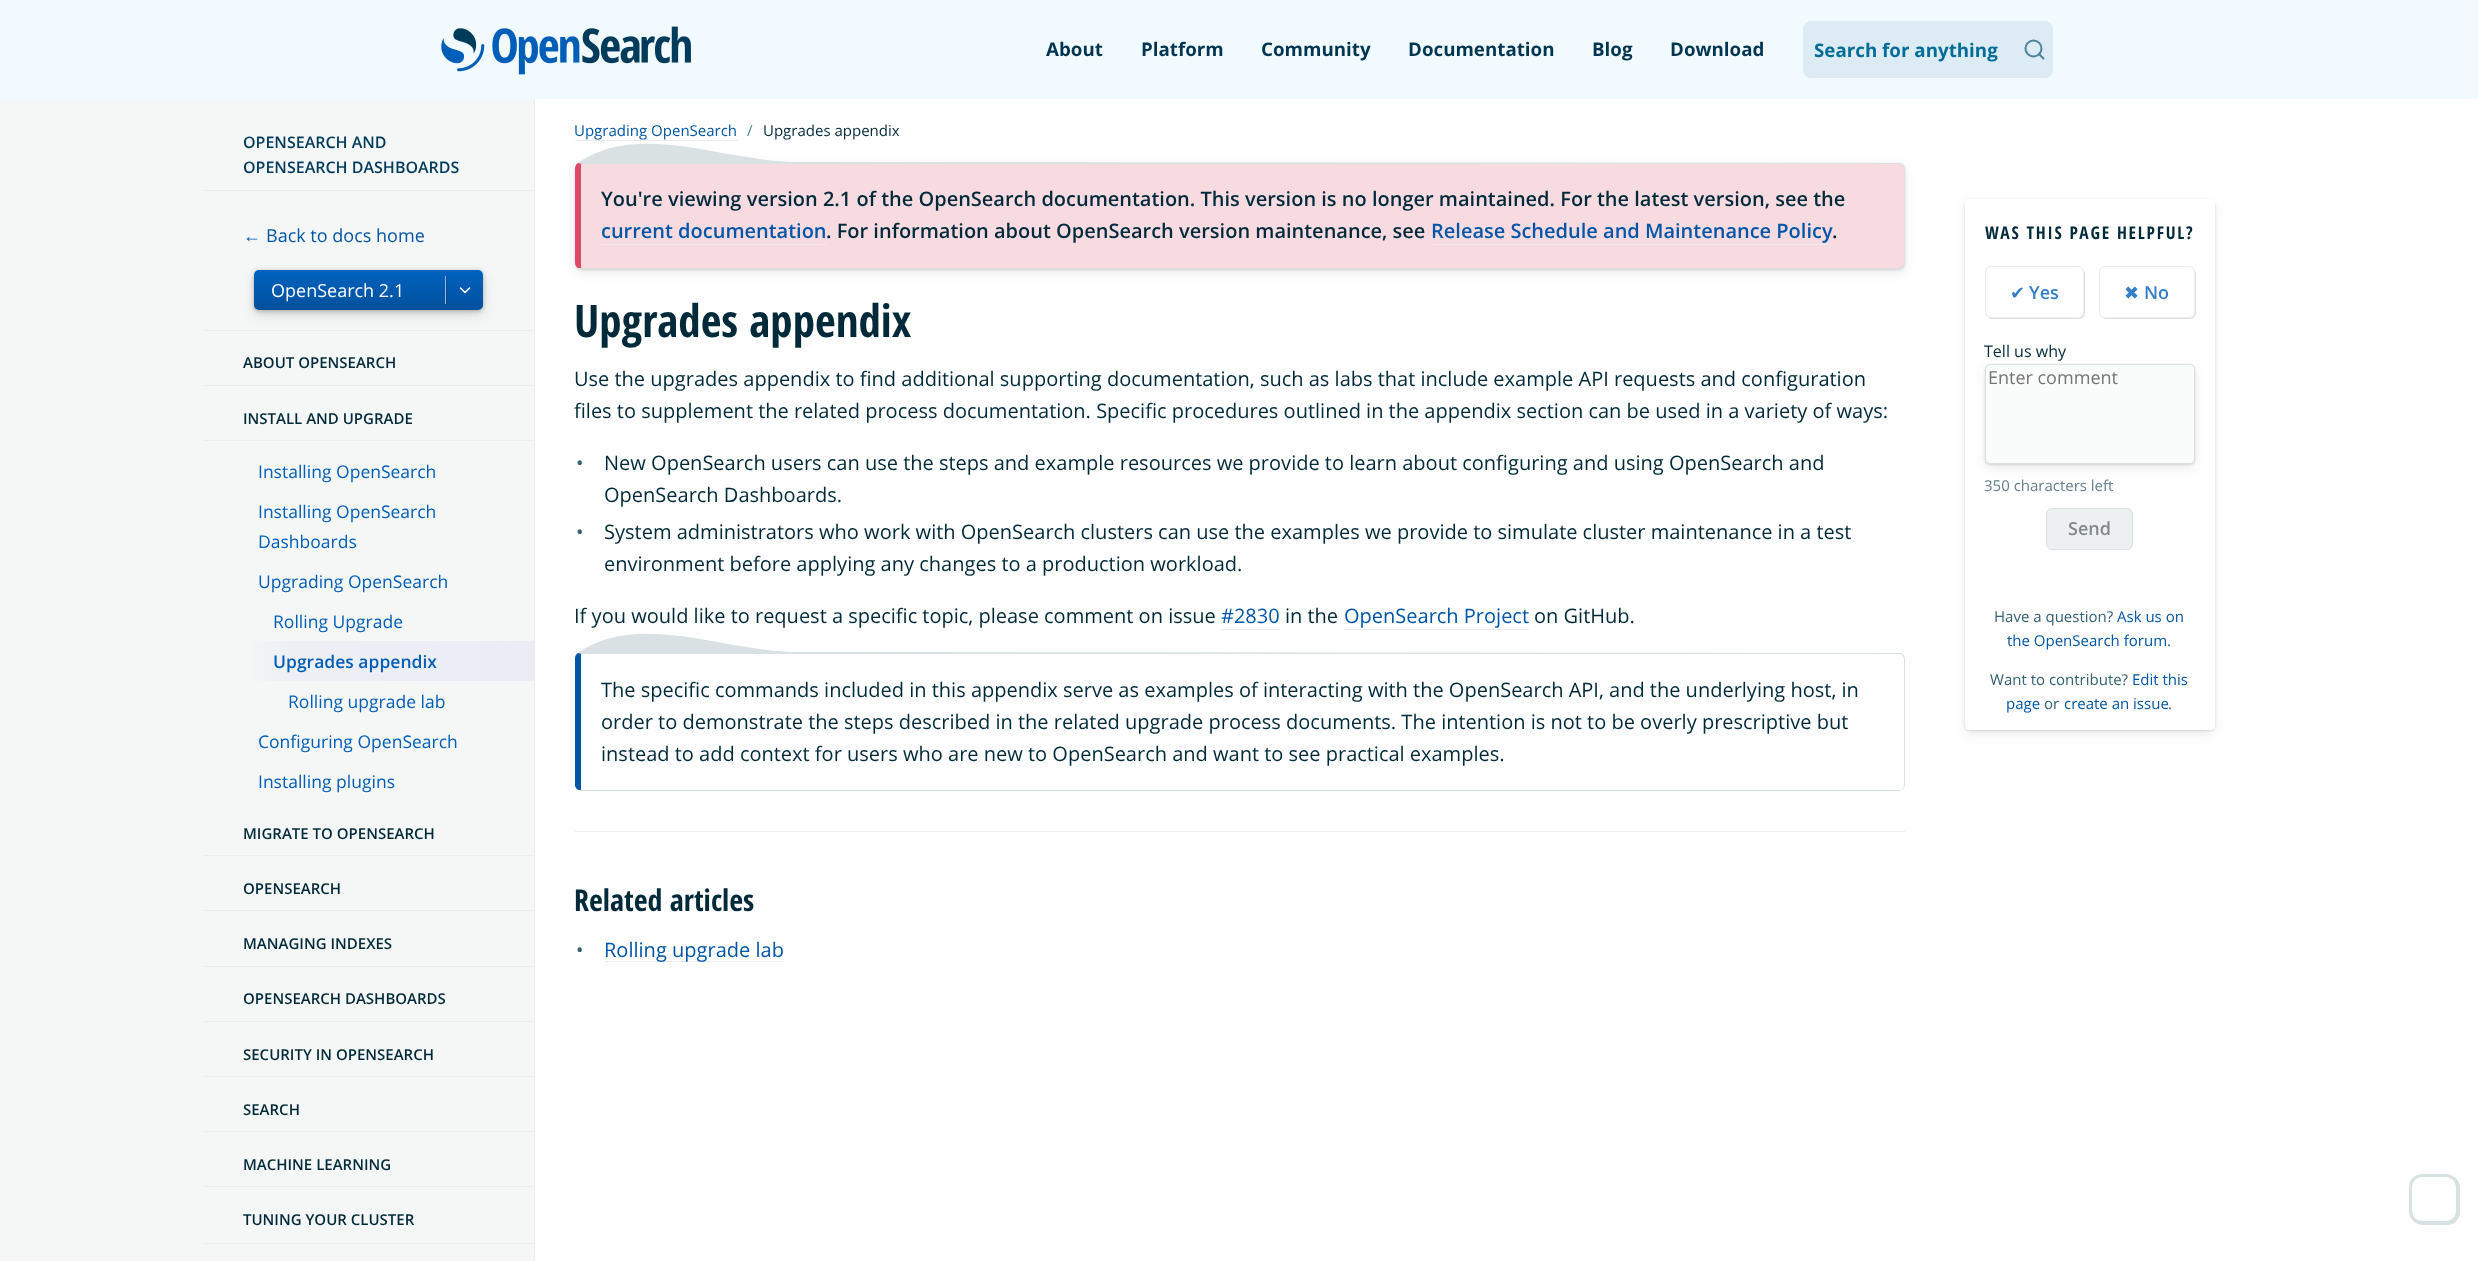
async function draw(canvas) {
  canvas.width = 2478
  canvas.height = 1261
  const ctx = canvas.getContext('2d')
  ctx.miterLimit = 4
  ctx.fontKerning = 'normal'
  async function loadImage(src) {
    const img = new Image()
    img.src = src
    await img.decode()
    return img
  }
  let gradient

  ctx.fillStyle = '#fff'
  ctx.fillRect(0, 0, 2478, 1261)
  ctx.fillStyle = '#f1fbff'
  ctx.fillRect(0, 0, 2478, 99)
  ctx.drawImage(await loadImage('image0.png'), 441, 26, 250, 49)
  ctx.font = 'bold 18.75px Open Sans'
  ctx.fillStyle = '#003551'
  ctx.fillText('About', 1046, 56)
  ctx.fillText('Platform', 1141, 56)
  ctx.fillText('Community', 1261, 56)
  ctx.fillText('Documentation', 1408, 56)
  ctx.fillText('Blog', 1592, 56)
  ctx.fillText('Download', 1670, 56)
  ctx.fillStyle = '#dcebf4'
  ctx.beginPath()
  ctx.roundRect(1803, 21, 250, 57, 8)
  ctx.fill()
  ctx.fillStyle = '#006d97'
  ctx.fillText('Search for anything', 1814, 57)
  ctx.beginPath()
  ctx.arc(2033.5, 48.5, 8, 0, 2 * Math.PI)
  ctx.strokeStyle = '#4d8399'
  ctx.lineWidth = 2
  ctx.stroke()
  ctx.beginPath()
  ctx.moveTo(2043.5, 58.5)
  ctx.lineTo(2039, 54)
  ctx.lineCap = 'round'
  ctx.lineJoin = 'round'
  ctx.stroke()
  ctx.fillStyle = '#f5f7f7'
  ctx.fillRect(0, 99, 534, 1162)
  ctx.fillStyle = '#eeebee'
  ctx.fillRect(534, 99, 1, 1162)
  ctx.fillRect(204, 330, 330, 1)
  ctx.fillRect(204, 190, 330, 1)
  ctx.font = '600 16px Open Sans'
  ctx.fillStyle = '#003b5c'
  ctx.fillText('OPENSEARCH AND', 243, 148)
  ctx.fillText('OPENSEARCH DASHBOARDS', 243, 173)
  ctx.font = '18px Liberation Sans'
  ctx.fillStyle = '#0055a6'
  ctx.fillText('←', 243, 242)
  ctx.font = '18px Open Sans'
  ctx.fillText('Back to docs home', 266, 242)
  ctx.fillStyle = '#0000001f'
  ctx.filter = 'blur(6px)'
  ctx.beginPath()
  ctx.roundRect(254, 275, 229, 40, 5)
  ctx.fill()
  ctx.filter = 'none'
  ctx.fillStyle = '#00000040'
  ctx.filter = 'blur(2px)'
  ctx.beginPath()
  ctx.roundRect(254, 271, 229, 40, 5)
  ctx.fill()
  ctx.filter = 'none'
  gradient = ctx.createLinearGradient(368, 270, 368, 310)
  gradient.addColorStop(0, '#0062c0')
  gradient.addColorStop(1, '#00509c')
  ctx.fillStyle = gradient
  ctx.beginPath()
  ctx.roundRect(254, 270, 229, 40, 5)
  ctx.fill()
  gradient = ctx.createLinearGradient(368, 270, 368, 310)
  gradient.addColorStop(0, '#99c0e6')
  gradient.addColorStop(1, '#99b9d7')
  ctx.fillStyle = gradient
  ctx.fillRect(445, 276, 1, 28)
  gradient = ctx.createLinearGradient(368, 270, 368, 310)
  gradient.addColorStop(0, '#004e9a')
  gradient.addColorStop(1, '#00407d')
  ctx.fillStyle = gradient
  ctx.fillRect(446, 276, 1, 28)
  ctx.fillStyle = '#fff'
  ctx.fillText('OpenSearch 2.1', 271, 297)
  ctx.beginPath()
  ctx.moveTo(460.5, 288)
  ctx.lineTo(465, 292.5)
  ctx.lineTo(469.5, 288)
  ctx.strokeStyle = '#fff'
  ctx.lineWidth = 1.5
  ctx.stroke()
  ctx.fillStyle = '#eeebee'
  ctx.fillRect(204, 385, 330, 1)
  ctx.font = '600 15px Open Sans'
  ctx.fillStyle = '#002a3a'
  ctx.fillText('ABOUT OPENSEARCH', 243, 368)
  ctx.fillStyle = '#eeebee'
  ctx.fillRect(204, 440, 330, 1)
  ctx.fillStyle = '#002a3a'
  ctx.fillText('INSTALL AND UPGRADE', 243, 424)
  ctx.font = '17.5px Open Sans'
  ctx.fillStyle = '#005eb8'
  ctx.fillText('Installing OpenSearch', 258, 478)
  ctx.fillText('Installing OpenSearch', 258, 518)
  ctx.fillText('Dashboards', 258, 548)
  ctx.fillText('Upgrading OpenSearch', 258, 588)
  ctx.fillText('Rolling Upgrade', 273, 628)
  gradient = ctx.createLinearGradient(534, 661, 234, 661)
  gradient.addColorStop(0, '#ebedf5')
  gradient.addColorStop(0.8, '#edeff5')
  gradient.addColorStop(1, '#f5f7f7')
  ctx.fillStyle = gradient
  ctx.fillRect(253, 641, 281, 40)
  ctx.font = '600 17.5px Open Sans'
  ctx.fillStyle = '#005eb8'
  ctx.fillText('Upgrades appendix', 273, 668)
  ctx.font = '17.5px Open Sans'
  ctx.fillText('Rolling upgrade lab', 288, 708)
  ctx.fillText('Configuring OpenSearch', 258, 748)
  ctx.fillText('Installing plugins', 258, 788)
  ctx.fillStyle = '#eeebee'
  ctx.fillRect(204, 855, 330, 1)
  ctx.font = '600 15px Open Sans'
  ctx.fillStyle = '#002a3a'
  ctx.fillText('MIGRATE TO OPENSEARCH', 243, 839)
  ctx.fillStyle = '#eeebee'
  ctx.fillRect(204, 910, 330, 1)
  ctx.fillStyle = '#002a3a'
  ctx.fillText('OPENSEARCH', 243, 894)
  ctx.fillStyle = '#eeebee'
  ctx.fillRect(204, 966, 330, 1)
  ctx.fillStyle = '#002a3a'
  ctx.fillText('MANAGING INDEXES', 243, 949)
  ctx.fillStyle = '#eeebee'
  ctx.fillRect(204, 1021, 330, 1)
  ctx.fillStyle = '#002a3a'
  ctx.fillText('OPENSEARCH DASHBOARDS', 243, 1004)
  ctx.fillStyle = '#eeebee'
  ctx.fillRect(204, 1076, 330, 1)
  ctx.fillStyle = '#002a3a'
  ctx.fillText('SECURITY IN OPENSEARCH', 243, 1060)
  ctx.fillStyle = '#eeebee'
  ctx.fillRect(204, 1131, 330, 1)
  ctx.fillStyle = '#002a3a'
  ctx.fillText('SEARCH', 243, 1115)
  ctx.fillStyle = '#eeebee'
  ctx.fillRect(204, 1186, 330, 1)
  ctx.fillStyle = '#002a3a'
  ctx.fillText('MACHINE LEARNING', 243, 1170)
  ctx.fillStyle = '#eeebee'
  ctx.fillRect(204, 1243, 330, 1)
  ctx.fillStyle = '#002a3a'
  ctx.fillText('TUNING YOUR CLUSTER', 243, 1225)
  ctx.font = '15px Open Sans'
  ctx.fillStyle = '#0055a6'
  ctx.fillText('Upgrading OpenSearch', 574, 136)
  ctx.fillStyle = '#eeebee'
  ctx.fillRect(575, 140, 163, 1)
  ctx.fillStyle = '#4d8399'
  ctx.fillText('/', 747, 136)
  ctx.fillStyle = '#002a3a'
  ctx.fillText('Upgrades appendix', 763, 136)
  ctx.fillStyle = '#00000014'
  ctx.filter = 'blur(6px)'
  ctx.beginPath()
  ctx.roundRect(575, 166, 1330, 107, 6)
  ctx.fill()
  ctx.filter = 'none'
  ctx.fillStyle = '#0000001f'
  ctx.filter = 'blur(1px)'
  ctx.beginPath()
  ctx.roundRect(575, 164, 1330, 106, 6)
  ctx.fill()
  ctx.filter = 'none'
  ctx.fillStyle = '#f8dbe1'
  ctx.beginPath()
  ctx.moveTo(581, 164)
  ctx.lineTo(1899, 164)
  ctx.bezierCurveTo(1902, 164, 1904, 166, 1904, 169)
  ctx.lineTo(1904, 262)
  ctx.bezierCurveTo(1904, 265, 1902, 268, 1899, 268)
  ctx.lineTo(581, 268)
  ctx.closePath()
  ctx.fill()
  ctx.fillStyle = '#d9e1e2'
  ctx.beginPath()
  ctx.moveTo(578, 163)
  ctx.bezierCurveTo(638, 120, 725, 162, 799, 162)
  ctx.lineTo(1901, 163)
  ctx.lineTo(1903, 164)
  ctx.lineTo(1902, 165)
  ctx.bezierCurveTo(1902, 164, 1900, 164, 1899, 164)
  ctx.lineTo(582, 164)
  ctx.closePath()
  ctx.fill()
  ctx.beginPath()
  ctx.moveTo(1905, 262)
  ctx.lineTo(1905, 169)
  ctx.bezierCurveTo(1905, 167, 1904, 165, 1903, 164)
  ctx.lineTo(1902, 165)
  ctx.bezierCurveTo(1903, 166, 1904, 167, 1904, 169)
  ctx.lineTo(1904, 262)
  ctx.bezierCurveTo(1904, 264, 1903, 265, 1903, 266)
  ctx.lineTo(1903, 267)
  ctx.bezierCurveTo(1904, 266, 1905, 264, 1905, 262)
  ctx.closePath()
  ctx.fill()
  ctx.beginPath()
  ctx.moveTo(579, 269)
  ctx.lineTo(578, 268)
  ctx.lineTo(581, 268)
  ctx.lineTo(1899, 268)
  ctx.bezierCurveTo(1900, 268, 1902, 267, 1903, 266)
  ctx.lineTo(1903, 267)
  ctx.lineTo(1901, 269)
  ctx.closePath()
  ctx.fill()
  ctx.fillStyle = '#dd4a69'
  ctx.beginPath()
  ctx.moveTo(581, 164)
  ctx.lineTo(582, 164)
  ctx.lineTo(578, 163)
  ctx.bezierCurveTo(576, 164, 575, 166, 575, 169)
  ctx.lineTo(575, 262)
  ctx.bezierCurveTo(575, 265, 576, 267, 578, 268)
  ctx.lineTo(581, 268)
  ctx.closePath()
  ctx.fill()
  ctx.font = '600 20px Open Sans'
  ctx.fillStyle = '#002a3a'
  ctx.fillText('You\'re viewing version 2.1 of the OpenSearch documentation. This version is no longer maintained. For the latest version, see the', 601, 206)
  ctx.fillStyle = '#0055a6'
  ctx.fillText('current documentation', 601, 238)
  ctx.fillStyle = '#eeebee'
  ctx.fillRect(601, 244, 225, 1)
  ctx.fillStyle = '#002a3a'
  ctx.fillText('. For information about OpenSearch version maintenance, see', 826, 238)
  ctx.fillStyle = '#0055a6'
  ctx.fillText('Release Schedule and Maintenance Policy', 1431, 238)
  ctx.fillStyle = '#eeebee'
  ctx.fillRect(1431, 244, 402, 1)
  ctx.fillStyle = '#002a3a'
  ctx.fillText('.', 1832, 238)
  ctx.font = 'bold 45px Open Sans Condensed'
  ctx.fillText('Upgrades appendix', 574, 337)
  ctx.font = '20px Open Sans'
  ctx.fillText('Use the upgrades appendix to find additional supporting documentation, such as labs that include example API requests and configuration', 574, 386)
  ctx.fillText('files to supplement the related process documentation. Specific procedures outlined in the appendix section can be used in a variety of ways:', 574, 418)
  ctx.fillStyle = '#346173'
  ctx.fillText('•', 576, 470)
  ctx.fillStyle = '#002a3a'
  ctx.fillText('New OpenSearch users can use the steps and example resources we provide to learn about configuring and using OpenSearch and', 604, 470)
  ctx.fillText('OpenSearch Dashboards.', 604, 502)
  ctx.fillStyle = '#346173'
  ctx.fillText('•', 576, 539)
  ctx.fillStyle = '#002a3a'
  ctx.fillText('System administrators who work with OpenSearch clusters can use the examples we provide to simulate cluster maintenance in a test', 604, 539)
  ctx.fillText('environment before applying any changes to a production workload.', 604, 571)
  ctx.fillText('If you would like to request a specific topic, please comment on issue', 574, 623)
  ctx.fillStyle = '#0055a6'
  ctx.fillText('#2830', 1221, 623)
  ctx.fillStyle = '#eeebee'
  ctx.fillRect(1221, 629, 59, 1)
  ctx.fillStyle = '#002a3a'
  ctx.fillText('in the', 1285, 623)
  ctx.fillStyle = '#0055a6'
  ctx.fillText('OpenSearch Project', 1344, 623)
  ctx.fillStyle = '#eeebee'
  ctx.fillRect(1344, 629, 185, 1)
  ctx.fillStyle = '#002a3a'
  ctx.fillText('on GitHub.', 1534, 623)
  ctx.fillStyle = '#d9e1e2'
  ctx.beginPath()
  ctx.moveTo(578, 653)
  ctx.bezierCurveTo(638, 610, 725, 652, 799, 652)
  ctx.lineTo(1901, 653)
  ctx.lineTo(1903, 654)
  ctx.lineTo(1902, 655)
  ctx.bezierCurveTo(1902, 654, 1900, 654, 1899, 654)
  ctx.lineTo(582, 654)
  ctx.closePath()
  ctx.fill()
  ctx.beginPath()
  ctx.moveTo(1905, 785)
  ctx.lineTo(1905, 659)
  ctx.bezierCurveTo(1905, 657, 1904, 655, 1903, 654)
  ctx.lineTo(1902, 655)
  ctx.bezierCurveTo(1903, 656, 1904, 657, 1904, 659)
  ctx.lineTo(1904, 785)
  ctx.bezierCurveTo(1904, 787, 1903, 788, 1902, 789)
  ctx.lineTo(1903, 789)
  ctx.bezierCurveTo(1904, 788, 1905, 787, 1905, 785)
  ctx.closePath()
  ctx.fill()
  ctx.beginPath()
  ctx.moveTo(1903, 789)
  ctx.bezierCurveTo(1902, 790, 1900, 791, 1899, 791)
  ctx.lineTo(581, 791)
  ctx.lineTo(579, 790)
  ctx.lineTo(581, 790)
  ctx.lineTo(1899, 790)
  ctx.bezierCurveTo(1900, 790, 1902, 790, 1902, 789)
  ctx.closePath()
  ctx.fill()
  ctx.fillStyle = '#0055a6'
  ctx.beginPath()
  ctx.moveTo(581, 654)
  ctx.lineTo(582, 654)
  ctx.lineTo(578, 653)
  ctx.bezierCurveTo(576, 654, 575, 656, 575, 659)
  ctx.lineTo(575, 785)
  ctx.bezierCurveTo(575, 787, 577, 790, 579, 790)
  ctx.lineTo(581, 790)
  ctx.closePath()
  ctx.fill()
  ctx.fillStyle = '#002a3a'
  ctx.fillText('The specific commands included in this appendix serve as examples of interacting with the OpenSearch API, and the underlying host, in', 601, 697)
  ctx.fillText('order to demonstrate the steps described in the related upgrade process documents. The intention is not to be overly prescriptive but', 601, 729)
  ctx.fillText('instead to add context for users who are new to OpenSearch and want to see practical examples.', 601, 761)
  ctx.fillStyle = '#eeebee'
  ctx.fillRect(575, 831, 1330, 1)
  ctx.font = 'bold 30px Open Sans Condensed'
  ctx.fillStyle = '#002a3a'
  ctx.fillText('Related articles', 574, 911)
  ctx.font = '20px Open Sans'
  ctx.fillStyle = '#346173'
  ctx.fillText('•', 576, 957)
  ctx.fillStyle = '#eeebee'
  ctx.fillRect(605, 961, 179, 1)
  ctx.fillStyle = '#0055a6'
  ctx.fillText('Rolling upgrade lab', 604, 957)
  ctx.fillStyle = '#d9e1e2'
  ctx.filter = 'blur(0.5px)'
  ctx.beginPath()
  ctx.roundRect(2410, 1175, 50, 50, 13)
  ctx.fill()
  ctx.filter = 'none'
  ctx.fillStyle = '#fff'
  ctx.beginPath()
  ctx.roundRect(2410.5, 1175.5, 47, 47, 11.5)
  ctx.fill()
  ctx.strokeStyle = '#d9e1e2'
  ctx.lineWidth = 3
  ctx.lineJoin = 'miter'
  ctx.stroke()
  ctx.save()
  ctx.beginPath()
  ctx.moveTo(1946, 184)
  ctx.lineTo(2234, 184)
  ctx.lineTo(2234, 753)
  ctx.lineTo(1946, 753)
  ctx.closePath()
  ctx.moveTo(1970, 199)
  ctx.lineTo(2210, 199)
  ctx.bezierCurveTo(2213, 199, 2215, 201, 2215, 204)
  ctx.lineTo(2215, 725)
  ctx.bezierCurveTo(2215, 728, 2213, 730, 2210, 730)
  ctx.lineTo(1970, 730)
  ctx.bezierCurveTo(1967, 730, 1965, 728, 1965, 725)
  ctx.lineTo(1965, 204)
  ctx.bezierCurveTo(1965, 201, 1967, 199, 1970, 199)
  ctx.closePath()
  ctx.clip('evenodd')
  ctx.fillStyle = '#00000014'
  ctx.filter = 'blur(6px)'
  ctx.beginPath()
  ctx.roundRect(1965, 203, 250, 531, 5)
  ctx.fill()
  ctx.filter = 'none'
  ctx.restore()
  ctx.save()
  ctx.beginPath()
  ctx.moveTo(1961, 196)
  ctx.lineTo(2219, 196)
  ctx.lineTo(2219, 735)
  ctx.lineTo(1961, 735)
  ctx.closePath()
  ctx.moveTo(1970, 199)
  ctx.lineTo(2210, 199)
  ctx.bezierCurveTo(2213, 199, 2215, 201, 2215, 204)
  ctx.lineTo(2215, 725)
  ctx.bezierCurveTo(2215, 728, 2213, 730, 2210, 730)
  ctx.lineTo(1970, 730)
  ctx.bezierCurveTo(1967, 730, 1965, 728, 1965, 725)
  ctx.lineTo(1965, 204)
  ctx.bezierCurveTo(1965, 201, 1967, 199, 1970, 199)
  ctx.closePath()
  ctx.clip('evenodd')
  ctx.fillStyle = '#0000001f'
  ctx.filter = 'blur(1px)'
  ctx.beginPath()
  ctx.roundRect(1965, 200, 250, 531, 5)
  ctx.fill()
  ctx.filter = 'none'
  ctx.restore()
  ctx.letterSpacing = '1.75px'
  ctx.font = 'bold 17.5px Open Sans Condensed'
  ctx.fillStyle = '#002a3a'
  ctx.fillText('WAS THIS PAGE HELPFUL?', 1985, 239)
  ctx.fillStyle = '#d9e1e2'
  ctx.beginPath()
  ctx.moveTo(1986, 315)
  ctx.bezierCurveTo(1987, 317, 1989, 319, 1992, 319)
  ctx.lineTo(2079, 319)
  ctx.bezierCurveTo(2082, 319, 2085, 316, 2085, 313)
  ctx.lineTo(2085, 274)
  ctx.bezierCurveTo(2085, 272, 2084, 271, 2083, 270)
  ctx.lineTo(2084, 272)
  ctx.lineTo(2084, 311)
  ctx.bezierCurveTo(2084, 315, 2081, 318, 2078, 318)
  ctx.lineTo(1991, 318)
  ctx.bezierCurveTo(1989, 318, 1988, 317, 1986, 315)
  ctx.closePath()
  ctx.fill()
  ctx.fillStyle = '#fff'
  ctx.beginPath()
  ctx.roundRect(1985.5, 266.5, 98, 51, 5.5)
  ctx.fill()
  ctx.strokeStyle = '#eeebee'
  ctx.lineWidth = 1
  ctx.stroke()
  ctx.letterSpacing = '0px'
  ctx.font = '18px DejaVu Sans'
  ctx.fillStyle = '#337ec6'
  ctx.fillText('✔', 2010, 299)
  ctx.font = '600 18px Open Sans'
  ctx.fillText('Yes', 2029, 299)
  ctx.fillStyle = '#d9e1e2'
  ctx.beginPath()
  ctx.moveTo(2101, 316)
  ctx.bezierCurveTo(2102, 318, 2104, 319, 2106, 319)
  ctx.lineTo(2190, 319)
  ctx.bezierCurveTo(2193, 319, 2196, 316, 2196, 313)
  ctx.lineTo(2196, 274)
  ctx.bezierCurveTo(2196, 272, 2195, 271, 2194, 270)
  ctx.lineTo(2195, 272)
  ctx.lineTo(2195, 311)
  ctx.bezierCurveTo(2195, 315, 2192, 318, 2189, 318)
  ctx.lineTo(2105, 318)
  ctx.bezierCurveTo(2103, 318, 2102, 317, 2101, 316)
  ctx.closePath()
  ctx.fill()
  ctx.fillStyle = '#fff'
  ctx.beginPath()
  ctx.roundRect(2099.5, 266.5, 95, 51, 5.5)
  ctx.fill()
  ctx.stroke()
  ctx.font = '18px DejaVu Sans'
  ctx.fillStyle = '#337ec6'
  ctx.fillText('✖', 2124, 299)
  ctx.font = '600 18px Open Sans'
  ctx.fillText('No', 2144, 299)
  ctx.font = '16px Open Sans'
  ctx.fillStyle = '#002a3a'
  ctx.fillText('Tell us why', 1984, 357)
  ctx.fillStyle = '#00000014'
  ctx.filter = 'blur(6px)'
  ctx.beginPath()
  ctx.roundRect(1985, 368, 210, 100, 5)
  ctx.fill()
  ctx.filter = 'none'
  ctx.fillStyle = '#0000001f'
  ctx.filter = 'blur(1px)'
  ctx.beginPath()
  ctx.roundRect(1985, 365, 210, 100, 5)
  ctx.fill()
  ctx.filter = 'none'
  ctx.fillStyle = '#fafbfb'
  ctx.beginPath()
  ctx.roundRect(1985.5, 364.5, 209, 99, 4.5)
  ctx.fill()
  ctx.strokeStyle = '#d9e1e2'
  ctx.stroke()
  ctx.font = '18px Open Sans'
  ctx.fillStyle = '#757575'
  ctx.fillText('Enter comment', 1988, 384)
  ctx.font = '15px Open Sans'
  ctx.fillStyle = '#667f89'
  ctx.fillText('350 characters left', 1984, 491)
  ctx.fillStyle = '#ecf0f1'
  ctx.beginPath()
  ctx.roundRect(2046.5, 508.5, 86, 41, 5.5)
  ctx.fill()
  ctx.stroke()
  ctx.font = '600 18px Open Sans'
  ctx.fillStyle = '#828788'
  ctx.fillText('Send', 2068, 535)
  ctx.font = '15px Open Sans'
  ctx.fillStyle = '#346173'
  ctx.fillText('Have a question?', 1994, 622)
  ctx.fillStyle = '#0055a6'
  ctx.fillText('Ask us on', 2117, 622)
  ctx.fillText('the OpenSearch forum', 2007, 646)
  ctx.fillStyle = '#346173'
  ctx.fillText('.', 2167, 646)
  ctx.fillText('Want to contribute?', 1990, 685)
  ctx.fillStyle = '#0055a6'
  ctx.fillText('Edit this', 2132, 685)
  ctx.fillText('page', 2006, 709)
  ctx.fillStyle = '#346173'
  ctx.fillText('or', 2044, 709)
  ctx.fillStyle = '#0055a6'
  ctx.fillText('create an issue', 2064, 709)
  ctx.fillStyle = '#346173'
  ctx.fillText('.', 2168, 709)
}

draw(document.querySelector('canvas'))
